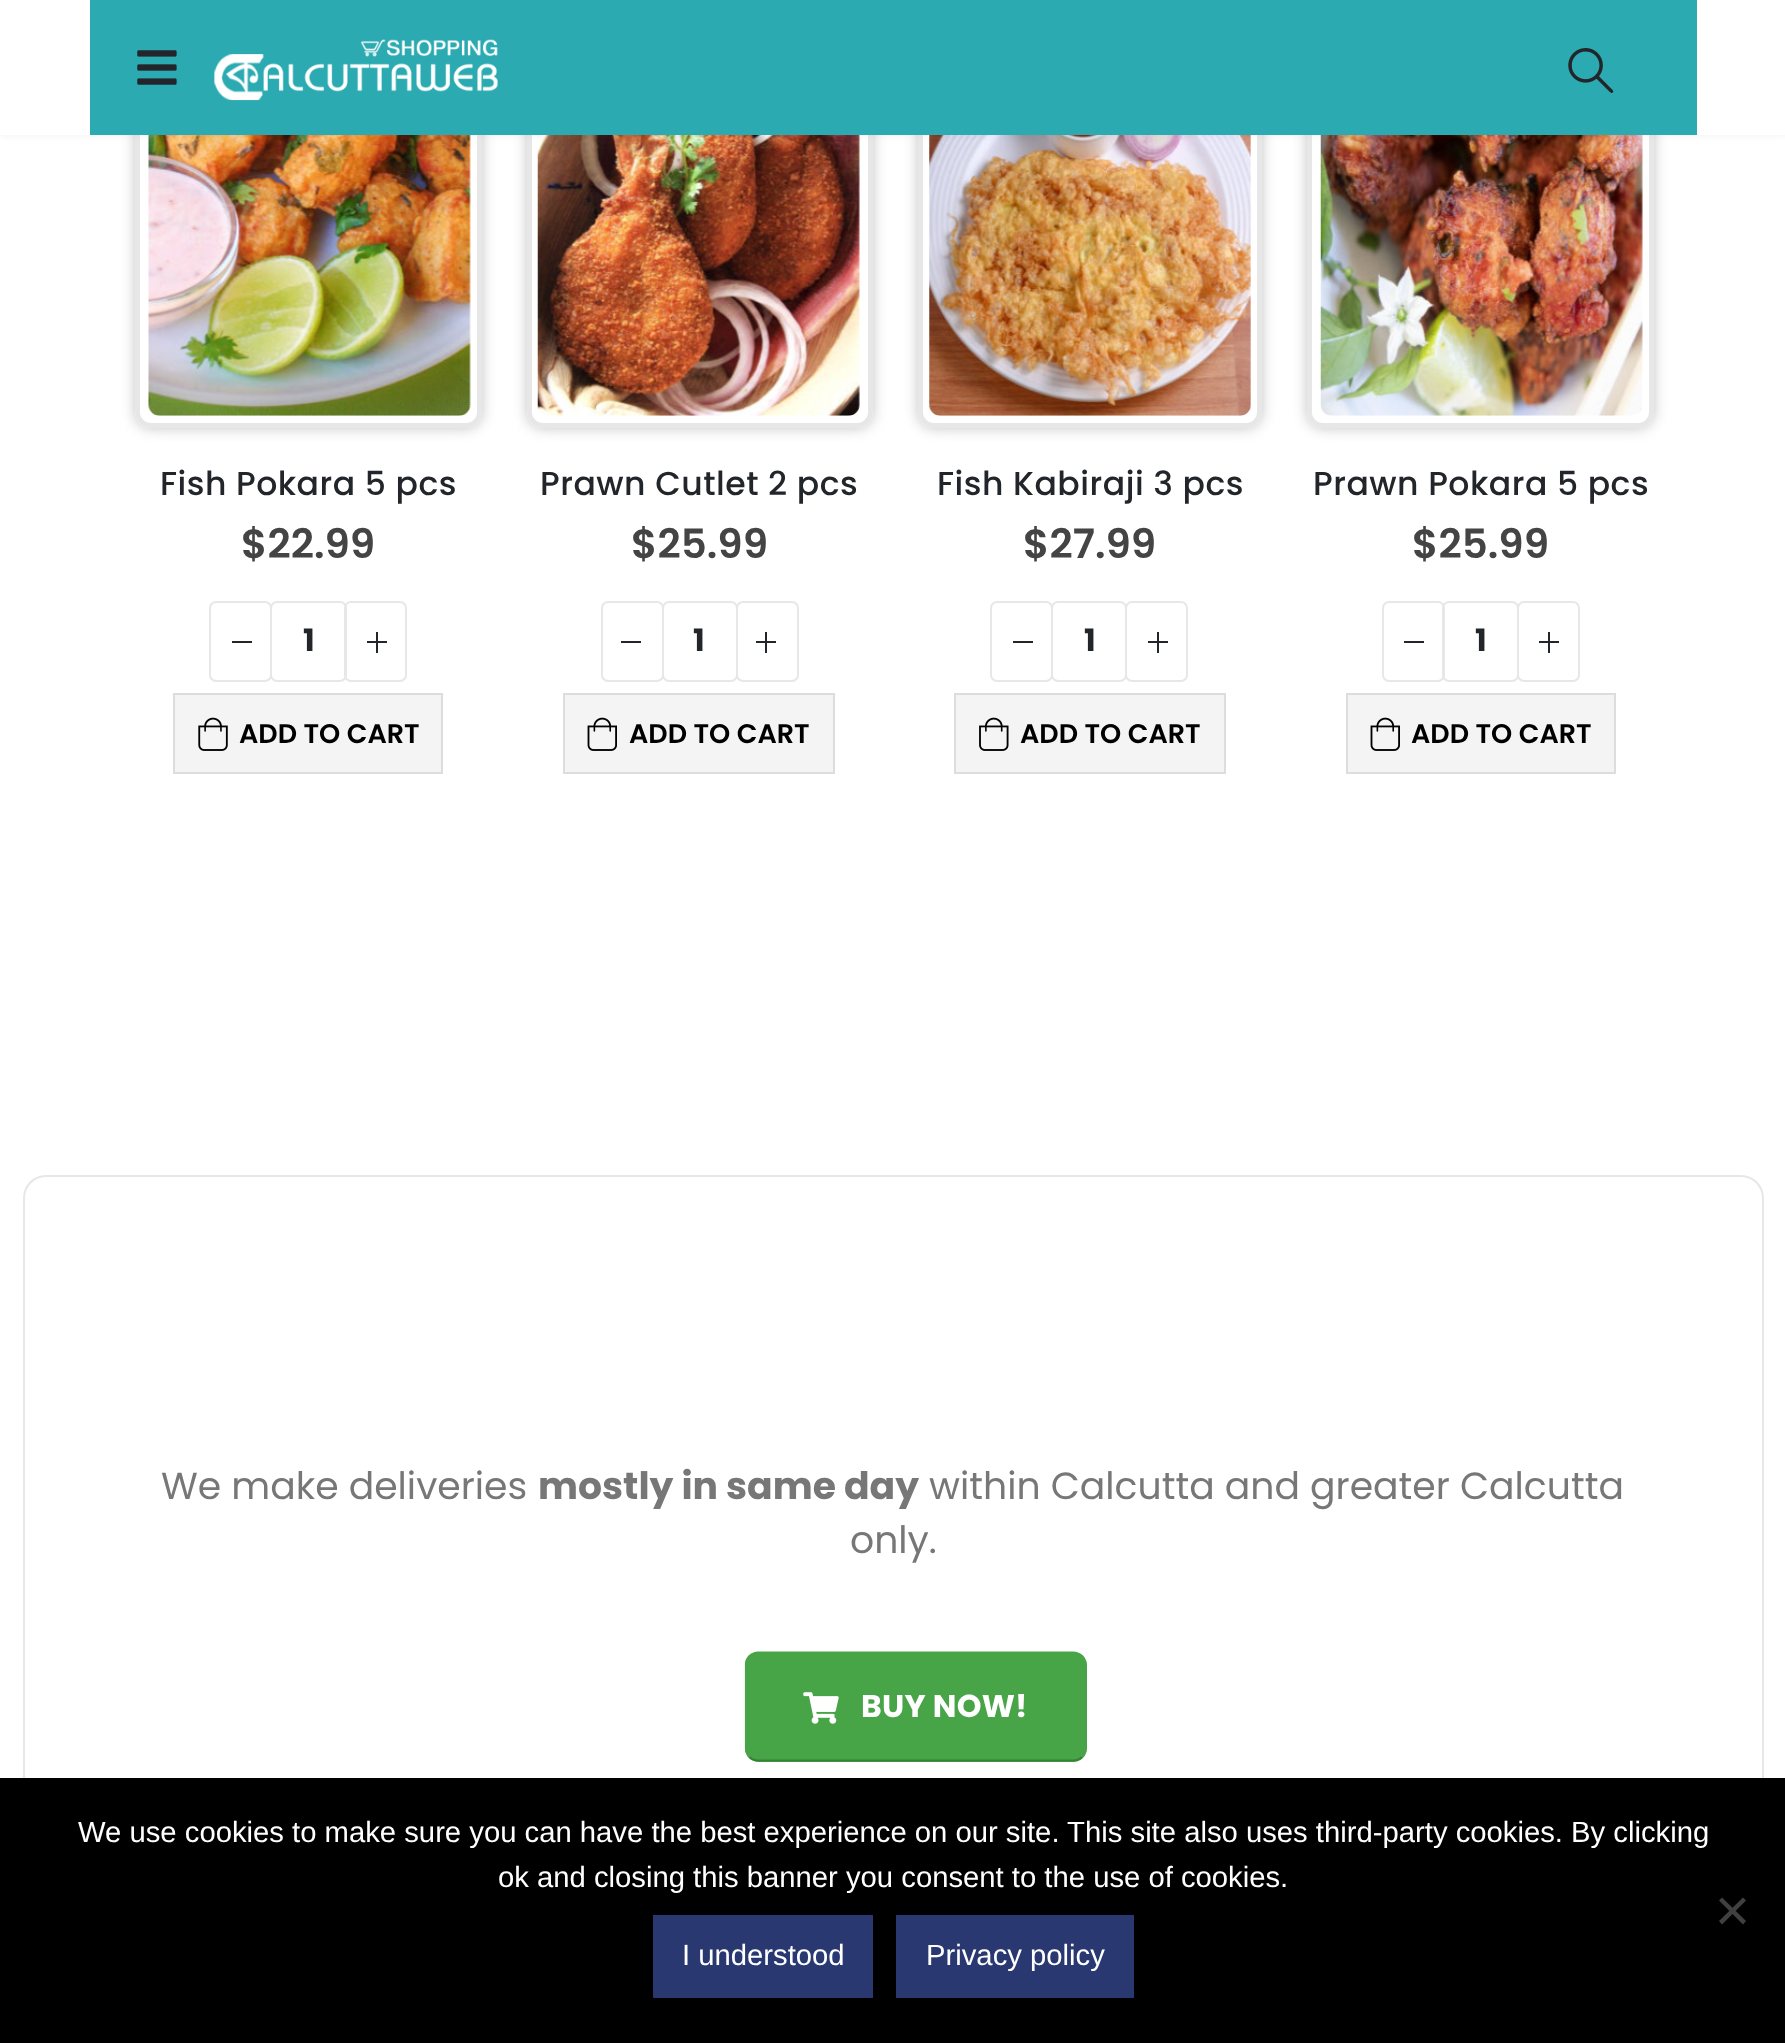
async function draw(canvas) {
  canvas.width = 1785
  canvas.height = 2043
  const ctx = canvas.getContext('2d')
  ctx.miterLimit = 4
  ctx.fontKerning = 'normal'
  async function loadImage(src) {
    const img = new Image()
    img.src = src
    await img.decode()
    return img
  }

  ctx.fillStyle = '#fff'
  ctx.fillRect(0, 0, 1785, 2043)
  ctx.save()
  ctx.beginPath()
  ctx.moveTo(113, 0)
  ctx.lineTo(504, 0)
  ctx.lineTo(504, 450)
  ctx.lineTo(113, 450)
  ctx.closePath()
  ctx.moveTo(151, 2)
  ctx.lineTo(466, 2)
  ctx.bezierCurveTo(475, 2, 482, 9, 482, 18)
  ctx.lineTo(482, 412)
  ctx.bezierCurveTo(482, 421, 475, 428, 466, 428)
  ctx.lineTo(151, 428)
  ctx.bezierCurveTo(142, 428, 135, 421, 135, 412)
  ctx.lineTo(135, 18)
  ctx.bezierCurveTo(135, 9, 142, 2, 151, 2)
  ctx.closePath()
  ctx.clip('evenodd')
  ctx.fillStyle = '#c4c4c4'
  ctx.filter = 'blur(7px)'
  ctx.beginPath()
  ctx.roundRect(135, 2, 347, 426, 16)
  ctx.fill()
  ctx.filter = 'none'
  ctx.restore()
  ctx.beginPath()
  ctx.roundRect(137.5, 4.5, 342, 421, 13.5)
  ctx.strokeStyle = '#e7e7e7'
  ctx.lineWidth = 5
  ctx.stroke()
  ctx.drawImage(await loadImage('image3.png'), 148, 135, 323, 281)
  ctx.save()
  ctx.beginPath()
  ctx.moveTo(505, 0)
  ctx.lineTo(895, 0)
  ctx.lineTo(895, 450)
  ctx.lineTo(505, 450)
  ctx.closePath()
  ctx.moveTo(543, 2)
  ctx.lineTo(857, 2)
  ctx.bezierCurveTo(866, 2, 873, 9, 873, 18)
  ctx.lineTo(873, 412)
  ctx.bezierCurveTo(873, 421, 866, 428, 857, 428)
  ctx.lineTo(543, 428)
  ctx.bezierCurveTo(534, 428, 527, 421, 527, 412)
  ctx.lineTo(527, 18)
  ctx.bezierCurveTo(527, 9, 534, 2, 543, 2)
  ctx.closePath()
  ctx.clip('evenodd')
  ctx.fillStyle = '#c4c4c4'
  ctx.filter = 'blur(7px)'
  ctx.beginPath()
  ctx.roundRect(527, 2, 346, 426, 16)
  ctx.fill()
  ctx.filter = 'none'
  ctx.restore()
  ctx.beginPath()
  ctx.roundRect(529.5, 4.5, 341, 421, 13.5)
  ctx.stroke()
  ctx.drawImage(await loadImage('image5.png'), 537, 135, 323, 281)
  ctx.save()
  ctx.beginPath()
  ctx.moveTo(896, 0)
  ctx.lineTo(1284, 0)
  ctx.lineTo(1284, 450)
  ctx.lineTo(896, 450)
  ctx.closePath()
  ctx.moveTo(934, 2)
  ctx.lineTo(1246, 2)
  ctx.bezierCurveTo(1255, 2, 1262, 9, 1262, 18)
  ctx.lineTo(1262, 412)
  ctx.bezierCurveTo(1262, 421, 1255, 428, 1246, 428)
  ctx.lineTo(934, 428)
  ctx.bezierCurveTo(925, 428, 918, 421, 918, 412)
  ctx.lineTo(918, 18)
  ctx.bezierCurveTo(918, 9, 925, 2, 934, 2)
  ctx.closePath()
  ctx.clip('evenodd')
  ctx.fillStyle = '#c4c4c4'
  ctx.filter = 'blur(7px)'
  ctx.beginPath()
  ctx.roundRect(918, 2, 344, 426, 16)
  ctx.fill()
  ctx.filter = 'none'
  ctx.restore()
  ctx.beginPath()
  ctx.roundRect(920.5, 4.5, 339, 421, 13.5)
  ctx.stroke()
  ctx.drawImage(await loadImage('image7.png'), 929, 135, 322, 281)
  ctx.save()
  ctx.beginPath()
  ctx.moveTo(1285, 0)
  ctx.lineTo(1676, 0)
  ctx.lineTo(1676, 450)
  ctx.lineTo(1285, 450)
  ctx.closePath()
  ctx.moveTo(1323, 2)
  ctx.lineTo(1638, 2)
  ctx.bezierCurveTo(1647, 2, 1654, 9, 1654, 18)
  ctx.lineTo(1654, 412)
  ctx.bezierCurveTo(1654, 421, 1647, 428, 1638, 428)
  ctx.lineTo(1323, 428)
  ctx.bezierCurveTo(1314, 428, 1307, 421, 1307, 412)
  ctx.lineTo(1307, 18)
  ctx.bezierCurveTo(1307, 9, 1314, 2, 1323, 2)
  ctx.closePath()
  ctx.clip('evenodd')
  ctx.fillStyle = '#c4c4c4'
  ctx.filter = 'blur(7px)'
  ctx.beginPath()
  ctx.roundRect(1307, 2, 347, 426, 16)
  ctx.fill()
  ctx.filter = 'none'
  ctx.restore()
  ctx.beginPath()
  ctx.roundRect(1309.5, 4.5, 342, 421, 13.5)
  ctx.stroke()
  ctx.drawImage(await loadImage('image9.png'), 1320, 135, 323, 281)
  ctx.fillStyle = '#0000000f'
  ctx.filter = 'blur(3.5px)'
  ctx.beginPath()
  ctx.rect(0, 0, 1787, 135)
  ctx.fill()
  ctx.filter = 'none'
  ctx.fillStyle = '#fff'
  ctx.fillRect(0, 0, 1785, 135)
  ctx.fillStyle = '#2baab1'
  ctx.fillRect(90, 0, 1607, 135)
  ctx.drawImage(await loadImage('image0.png'), 137, 50, 40, 35)
  ctx.drawImage(await loadImage('image1.png'), 214, 39, 284, 62)
  ctx.drawImage(await loadImage('image2.png'), 1568, 48, 46, 45)
  ctx.letterSpacing = '0.5px'
  ctx.font = '500 33.1px Poppins'
  ctx.fillStyle = '#222529'
  ctx.fillText('Fish Pokara 5 pcs', 160, 495)
  ctx.letterSpacing = '0px'
  ctx.font = '600 40.5px Poppins'
  ctx.fillStyle = '#444'
  ctx.fillText('$22.99', 241, 558)
  ctx.beginPath()
  ctx.roundRect(271, 602, 75, 79, 6)
  ctx.lineWidth = 2
  ctx.stroke()
  ctx.beginPath()
  ctx.roundRect(210, 602, 61, 79, 6)
  ctx.stroke()
  ctx.fillStyle = '#222529'
  ctx.fillRect(232, 641, 20, 2)
  ctx.font = 'bold 31px Poppins'
  ctx.fillText('1', 303, 651)
  ctx.beginPath()
  ctx.roundRect(345, 602, 61, 79, 6)
  ctx.stroke()
  ctx.fillRect(367, 641, 20, 2)
  ctx.fillRect(376, 632, 2, 21)
  ctx.fillStyle = '#f4f4f4'
  ctx.beginPath()
  ctx.rect(174, 694, 268, 79)
  ctx.fill()
  ctx.strokeStyle = '#ddd'
  ctx.stroke()
  ctx.drawImage(await loadImage('image4.png'), 198, 717, 30, 34)
  ctx.font = '600 27px Poppins'
  ctx.fillStyle = '#000'
  ctx.fillText('ADD TO CART', 239, 743)
  ctx.letterSpacing = '0.5px'
  ctx.font = '500 33.1px Poppins'
  ctx.fillStyle = '#222529'
  ctx.fillText('Prawn Cutlet 2 pcs', 540, 495)
  ctx.letterSpacing = '0px'
  ctx.font = '600 40.5px Poppins'
  ctx.fillStyle = '#444'
  ctx.fillText('$25.99', 631, 558)
  ctx.beginPath()
  ctx.roundRect(663, 602, 74, 79, 6)
  ctx.strokeStyle = '#e7e7e7'
  ctx.stroke()
  ctx.beginPath()
  ctx.roundRect(602, 602, 61, 79, 6)
  ctx.stroke()
  ctx.fillStyle = '#222529'
  ctx.fillRect(621, 641, 20, 2)
  ctx.font = 'bold 31px Poppins'
  ctx.fillText('1', 693, 651)
  ctx.beginPath()
  ctx.roundRect(737, 602, 61, 79, 6)
  ctx.stroke()
  ctx.fillRect(756, 641, 20, 2)
  ctx.fillRect(765, 632, 2, 21)
  ctx.fillStyle = '#f4f4f4'
  ctx.beginPath()
  ctx.rect(564, 694, 270, 79)
  ctx.fill()
  ctx.strokeStyle = '#ddd'
  ctx.stroke()
  ctx.drawImage(await loadImage('image6.png'), 587, 717, 30, 34)
  ctx.font = '600 27px Poppins'
  ctx.fillStyle = '#000'
  ctx.fillText('ADD TO CART', 629, 743)
  ctx.letterSpacing = '0.5px'
  ctx.font = '500 33.1px Poppins'
  ctx.fillStyle = '#222529'
  ctx.fillText('Fish Kabiraji 3 pcs', 937, 495)
  ctx.letterSpacing = '0px'
  ctx.font = '600 40.5px Poppins'
  ctx.fillStyle = '#444'
  ctx.fillText('$27.99', 1023, 558)
  ctx.beginPath()
  ctx.roundRect(1052, 602, 74, 79, 6)
  ctx.strokeStyle = '#e7e7e7'
  ctx.stroke()
  ctx.beginPath()
  ctx.roundRect(991, 602, 61, 79, 6)
  ctx.stroke()
  ctx.fillStyle = '#222529'
  ctx.fillRect(1013, 641, 20, 2)
  ctx.font = 'bold 31px Poppins'
  ctx.fillText('1', 1084, 651)
  ctx.beginPath()
  ctx.roundRect(1126, 602, 61, 79, 6)
  ctx.stroke()
  ctx.fillRect(1148, 641, 20, 2)
  ctx.fillRect(1157, 632, 2, 21)
  ctx.fillStyle = '#f4f4f4'
  ctx.beginPath()
  ctx.rect(955, 694, 270, 79)
  ctx.fill()
  ctx.strokeStyle = '#ddd'
  ctx.stroke()
  ctx.drawImage(await loadImage('image8.png'), 979, 717, 30, 34)
  ctx.font = '600 27px Poppins'
  ctx.fillStyle = '#000'
  ctx.fillText('ADD TO CART', 1020, 743)
  ctx.letterSpacing = '0.5px'
  ctx.font = '500 33.1px Poppins'
  ctx.fillStyle = '#222529'
  ctx.fillText('Prawn Pokara 5 pcs', 1313, 495)
  ctx.letterSpacing = '0px'
  ctx.font = '600 40.5px Poppins'
  ctx.fillStyle = '#444'
  ctx.fillText('$25.99', 1412, 558)
  ctx.beginPath()
  ctx.roundRect(1443, 602, 75, 79, 6)
  ctx.strokeStyle = '#e7e7e7'
  ctx.stroke()
  ctx.beginPath()
  ctx.roundRect(1383, 602, 61, 79, 6)
  ctx.stroke()
  ctx.fillStyle = '#222529'
  ctx.fillRect(1404, 641, 20, 2)
  ctx.font = 'bold 31px Poppins'
  ctx.fillText('1', 1475, 651)
  ctx.beginPath()
  ctx.roundRect(1518, 602, 61, 79, 6)
  ctx.stroke()
  ctx.fillRect(1539, 641, 20, 2)
  ctx.fillRect(1548, 632, 2, 21)
  ctx.fillStyle = '#f4f4f4'
  ctx.beginPath()
  ctx.rect(1347, 694, 268, 79)
  ctx.fill()
  ctx.strokeStyle = '#ddd'
  ctx.stroke()
  ctx.drawImage(await loadImage('image6.png'), 1370, 717, 30, 34)
  ctx.font = '600 27px Poppins'
  ctx.fillStyle = '#000'
  ctx.fillText('ADD TO CART', 1411, 743)
  ctx.beginPath()
  ctx.roundRect(24, 1176, 1739, 659, 22)
  ctx.strokeStyle = '#e7e7e7'
  ctx.stroke()
  ctx.font = '37.75px Poppins'
  ctx.fillStyle = '#777'
  ctx.fillText('We make deliveries', 161, 1499)
  ctx.font = 'bold 37.75px Poppins'
  ctx.fillText('mostly in same day', 538, 1499)
  ctx.font = '37.75px Poppins'
  ctx.fillText('within Calcutta and greater Calcutta', 929, 1499)
  ctx.fillText('only.', 850, 1553)
  ctx.fillStyle = '#47a447'
  ctx.beginPath()
  ctx.roundRect(745, 1652, 342, 110, 14)
  ctx.fill()
  ctx.beginPath()
  ctx.moveTo(1082, 1757)
  ctx.bezierCurveTo(1079.5, 1759.5, 1076.5, 1760.5, 1073, 1760.5)
  ctx.lineTo(758, 1760.5)
  ctx.bezierCurveTo(755, 1760.5, 752, 1759.5, 749.5, 1757)
  ctx.strokeStyle = '#388038'
  ctx.lineWidth = 2.2
  ctx.stroke()
  ctx.beginPath()
  ctx.moveTo(749.5, 1757)
  ctx.bezierCurveTo(747, 1754.5, 746, 1751.5, 746, 1748)
  ctx.lineTo(746, 1665)
  ctx.bezierCurveTo(746, 1661.5, 747, 1658.5, 749.5, 1656)
  ctx.bezierCurveTo(752, 1654, 755, 1652.5, 758, 1652.5)
  ctx.lineTo(1073, 1652.5)
  ctx.bezierCurveTo(1076.5, 1652.5, 1079.5, 1654, 1082, 1656)
  ctx.bezierCurveTo(1084.5, 1658.5, 1085.5, 1661.5, 1085.5, 1665)
  ctx.lineTo(1085.5, 1748)
  ctx.bezierCurveTo(1085.5, 1751.5, 1084.5, 1754.5, 1082, 1757)
  ctx.strokeStyle = '#47a447'
  ctx.stroke()
  ctx.drawImage(await loadImage('image10.png'), 803, 1692, 36, 32)
  ctx.letterSpacing = '0.25px'
  ctx.font = 'bold 31.5px Poppins'
  ctx.fillStyle = '#fff'
  ctx.fillText('BUY NOW!', 861, 1717)
  ctx.fillStyle = '#000'
  ctx.fillRect(0, 1778, 1785, 265)
  ctx.letterSpacing = '0px'
  ctx.font = '29.25px Liberation Sans'
  ctx.fillStyle = '#fff'
  ctx.fillText('We use cookies to make sure you can have the best experience on our site. This site also uses third-party cookies. By clicking', 78, 1842)
  ctx.fillText('ok and closing this banner you consent to the use of cookies.', 498, 1887)
  ctx.fillStyle = '#404040'
  ctx.beginPath()
  ctx.moveTo(1743, 1897.5)
  ctx.lineTo(1746, 1900.5)
  ctx.lineTo(1722, 1924.5)
  ctx.lineTo(1719, 1921)
  ctx.closePath()
  ctx.fill()
  ctx.beginPath()
  ctx.moveTo(1719, 1900.5)
  ctx.lineTo(1722, 1897.5)
  ctx.lineTo(1746, 1921)
  ctx.lineTo(1743, 1924.5)
  ctx.closePath()
  ctx.fill()
  ctx.fillStyle = '#293871'
  ctx.fillRect(653, 1915, 220, 83)
  ctx.fillStyle = '#fff'
  ctx.fillText('I understood', 682, 1965)
  ctx.fillStyle = '#293871'
  ctx.fillRect(896, 1915, 238, 83)
  ctx.fillStyle = '#fff'
  ctx.fillText('Privacy policy', 926, 1965)
}

draw(document.querySelector('canvas'))
